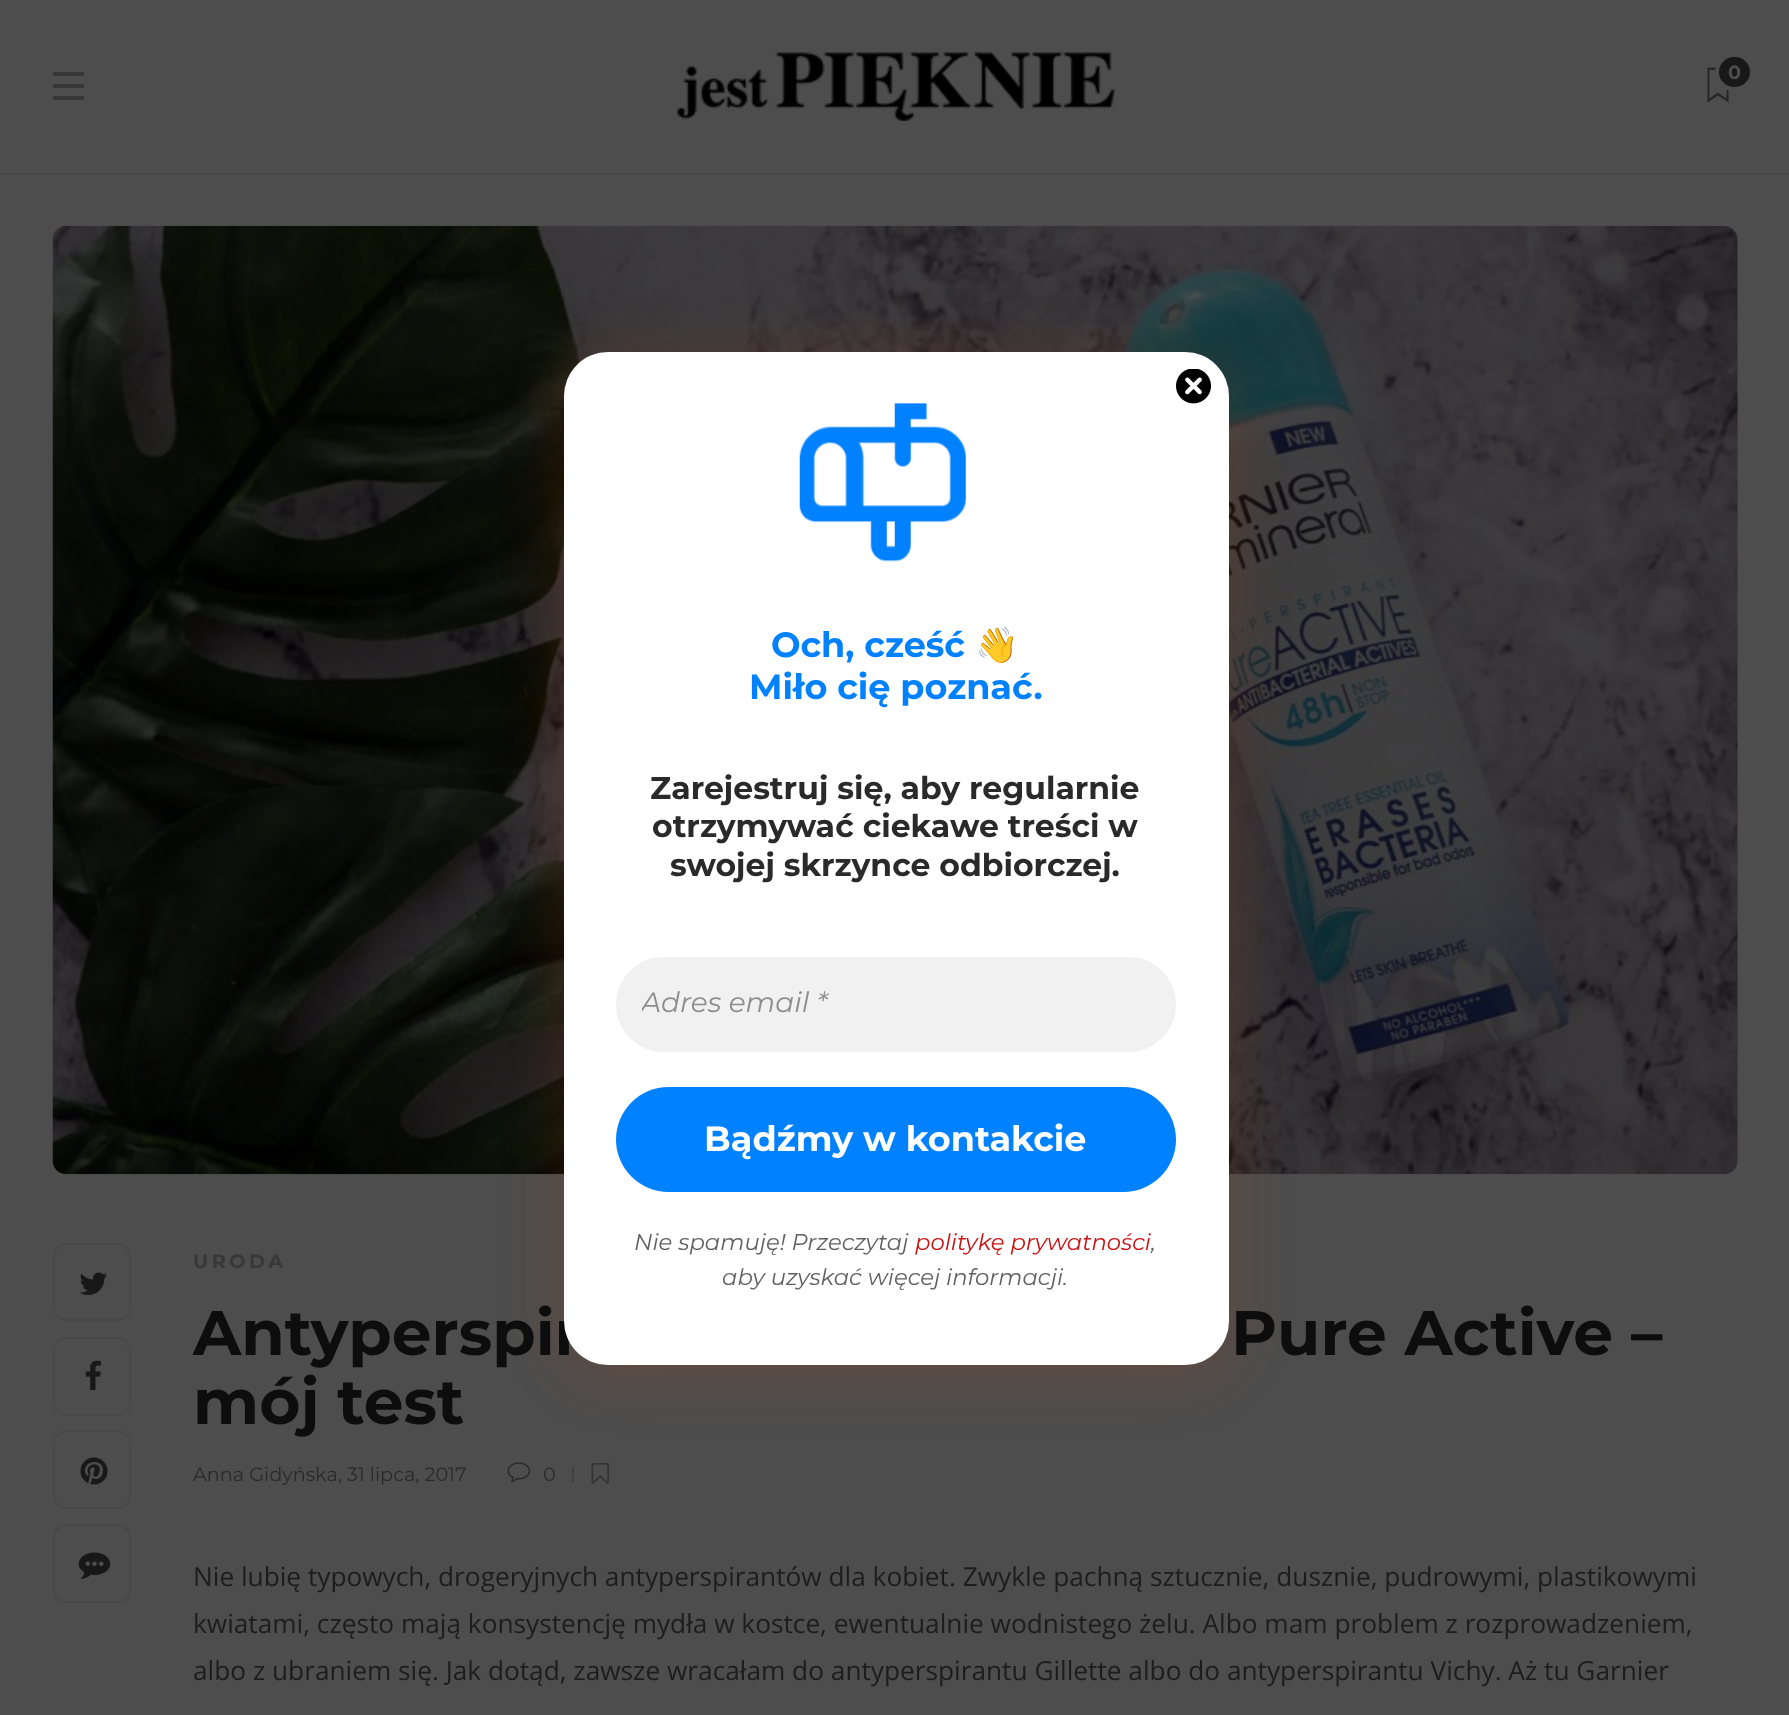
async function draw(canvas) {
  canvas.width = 1789
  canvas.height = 1715
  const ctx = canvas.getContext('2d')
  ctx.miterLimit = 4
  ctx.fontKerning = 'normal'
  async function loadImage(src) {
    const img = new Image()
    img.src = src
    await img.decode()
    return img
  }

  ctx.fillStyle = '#4d4d4d'
  ctx.fillRect(0, 0, 1789, 1715)
  ctx.fillStyle = '#474747'
  ctx.fillRect(0, 173, 1789, 2)
  ctx.fillStyle = '#363636'
  ctx.fillRect(53, 72, 31, 4)
  ctx.fillRect(53, 84, 31, 4)
  ctx.fillRect(53, 96, 31, 4)
  ctx.drawImage(await loadImage('image0.png'), 677, 52, 438, 69)
  ctx.fillStyle = '#262626'
  ctx.beginPath()
  ctx.moveTo(1707.5, 67.5)
  ctx.lineTo(1707.5, 102.5)
  ctx.lineTo(1718, 95.5)
  ctx.lineTo(1728.5, 102.5)
  ctx.lineTo(1728.5, 67.5)
  ctx.closePath()
  ctx.moveTo(1726.5, 98.5)
  ctx.lineTo(1718, 92.5)
  ctx.lineTo(1709.5, 98.5)
  ctx.lineTo(1709.5, 70)
  ctx.lineTo(1726.5, 70)
  ctx.closePath()
  ctx.fill()
  ctx.fillStyle = '#181818'
  ctx.beginPath()
  ctx.roundRect(1717, 55, 35, 34, 17)
  ctx.fill()
  ctx.strokeStyle = '#4d4d4d'
  ctx.lineWidth = 4
  ctx.stroke()
  ctx.font = 'bold 19.25px Montserrat'
  ctx.fillStyle = '#4d4d4d'
  ctx.fillText('0', 1728, 79)
  ctx.drawImage(await loadImage('image1.png'), 52, 225, 1686, 950)
  ctx.beginPath()
  ctx.roundRect(54, 1244, 76, 76, 13)
  ctx.strokeStyle = '#484848'
  ctx.lineWidth = 2
  ctx.stroke()
  ctx.drawImage(await loadImage('image2.png'), 79, 1272, 29, 23)
  ctx.beginPath()
  ctx.roundRect(54, 1338, 76, 77, 13)
  ctx.stroke()
  ctx.drawImage(await loadImage('image3.png'), 85, 1360, 16, 30)
  ctx.beginPath()
  ctx.roundRect(54, 1431, 76, 77, 13)
  ctx.stroke()
  ctx.drawImage(await loadImage('image4.png'), 80, 1457, 28, 28)
  ctx.beginPath()
  ctx.roundRect(54, 1525, 76, 77, 13)
  ctx.stroke()
  ctx.drawImage(await loadImage('image5.png'), 78, 1552, 33, 27)
  ctx.drawImage(await loadImage('image8.png'), 507, 1462, 24, 21)
  ctx.drawImage(await loadImage('image9.png'), 591, 1463, 18, 21)
  ctx.fillStyle = '#c3410233'
  ctx.filter = 'blur(30.5px)'
  ctx.beginPath()
  ctx.roundRect(564, 359, 665, 1013, 44)
  ctx.fill()
  ctx.filter = 'none'
  ctx.font = 'bold 63px Montserrat'
  ctx.fillStyle = '#0d0d0d'
  ctx.fillText('Antyperspir', 193, 1355)
  ctx.fillStyle = '#fff'
  ctx.beginPath()
  ctx.roundRect(564, 352, 665, 1013, 44)
  ctx.fill()
  ctx.drawImage(await loadImage('image6.png'), 1176, 369, 35, 35)
  ctx.drawImage(await loadImage('image7.png'), 799, 403, 168, 159)
  ctx.font = 'bold 35px Montserrat'
  ctx.fillStyle = '#0081ff'
  ctx.fillText('Och, cześć', 771, 657)
  ctx.font = 'bold 35px Noto Color Emoji'
  ctx.fillText('👋', 975, 657)
  ctx.font = 'bold 35px Montserrat'
  ctx.fillText('Miło cię poznać.', 749, 699)
  ctx.font = 'bold 31.5px Montserrat'
  ctx.fillStyle = '#2a2a2a'
  ctx.fillText('Zarejestruj się, aby regularnie', 650, 799)
  ctx.fillText('otrzymywać ciekawe treści w', 652, 837)
  ctx.fillText('swojej skrzynce odbiorczej.', 670, 876)
  ctx.fillStyle = '#f1f1f1'
  ctx.beginPath()
  ctx.roundRect(616, 957, 560, 95, 47.5)
  ctx.fill()
  ctx.save()
  ctx.beginPath()
  ctx.rect(642, 987, 508, 33)
  ctx.clip()
  ctx.font = 'italic 28px Montserrat'
  ctx.fillStyle = '#8d8d8d'
  ctx.fillText('Adres email *', 641, 1012)
  ctx.restore()
  ctx.fillStyle = '#0081ff'
  ctx.beginPath()
  ctx.roundRect(616, 1087, 560, 105, 52.5)
  ctx.fill()
  ctx.font = 'bold 35px Montserrat'
  ctx.fillStyle = '#fff'
  ctx.fillText('Bądźmy w kontakcie', 704, 1151)
  ctx.font = 'italic 22.75px Montserrat'
  ctx.fillStyle = '#616161'
  ctx.fillText('Nie spamuję! Przeczytaj', 634, 1250)
  ctx.fillStyle = '#c81313'
  ctx.fillText('politykę prywatności', 915, 1250)
  ctx.fillStyle = '#616161'
  ctx.fillText(',', 1151, 1250)
  ctx.fillText('aby uzyskać więcej informacji.', 722, 1285)
  ctx.font = '26.25px Open Sans'
  ctx.fillStyle = '#1d1d1d'
  ctx.fillText('Nie lubię typowych, drogeryjnych antyperspirantów dla kobiet. Zwykle pachną sztucznie, dusznie, pudrowymi, plastikowymi', 193, 1586)
  ctx.fillText('kwiatami, często mają konsystencję mydła w kostce, ewentualnie wodnistego żelu. Albo mam problem z rozprowadzeniem,', 193, 1633)
  ctx.fillText('albo z ubraniem się. Jak dotąd, zawsze wracałam do antyperspirantu Gillette albo do antyperspirantu Vichy. Aż tu Garnier', 193, 1680)
  ctx.letterSpacing = '3.5px'
  ctx.font = 'bold 19.25px Montserrat'
  ctx.fillStyle = '#383838'
  ctx.fillText('URODA', 193, 1268)
  ctx.letterSpacing = '0px'
  ctx.font = 'bold 63px Montserrat'
  ctx.fillStyle = '#0d0d0d'
  ctx.fillText('Pure Active –', 1231, 1355)
  ctx.fillText('mój test', 193, 1424)
  ctx.font = '19.25px Montserrat'
  ctx.fillStyle = '#2a2a2a'
  ctx.fillText('Anna Gidyńska, 31 lipca, 2017', 193, 1481)
  ctx.fillText('0', 543, 1481)
  ctx.fillStyle = '#404040'
  ctx.fillRect(572, 1467, 2, 15)
}

draw(document.querySelector('canvas'))
